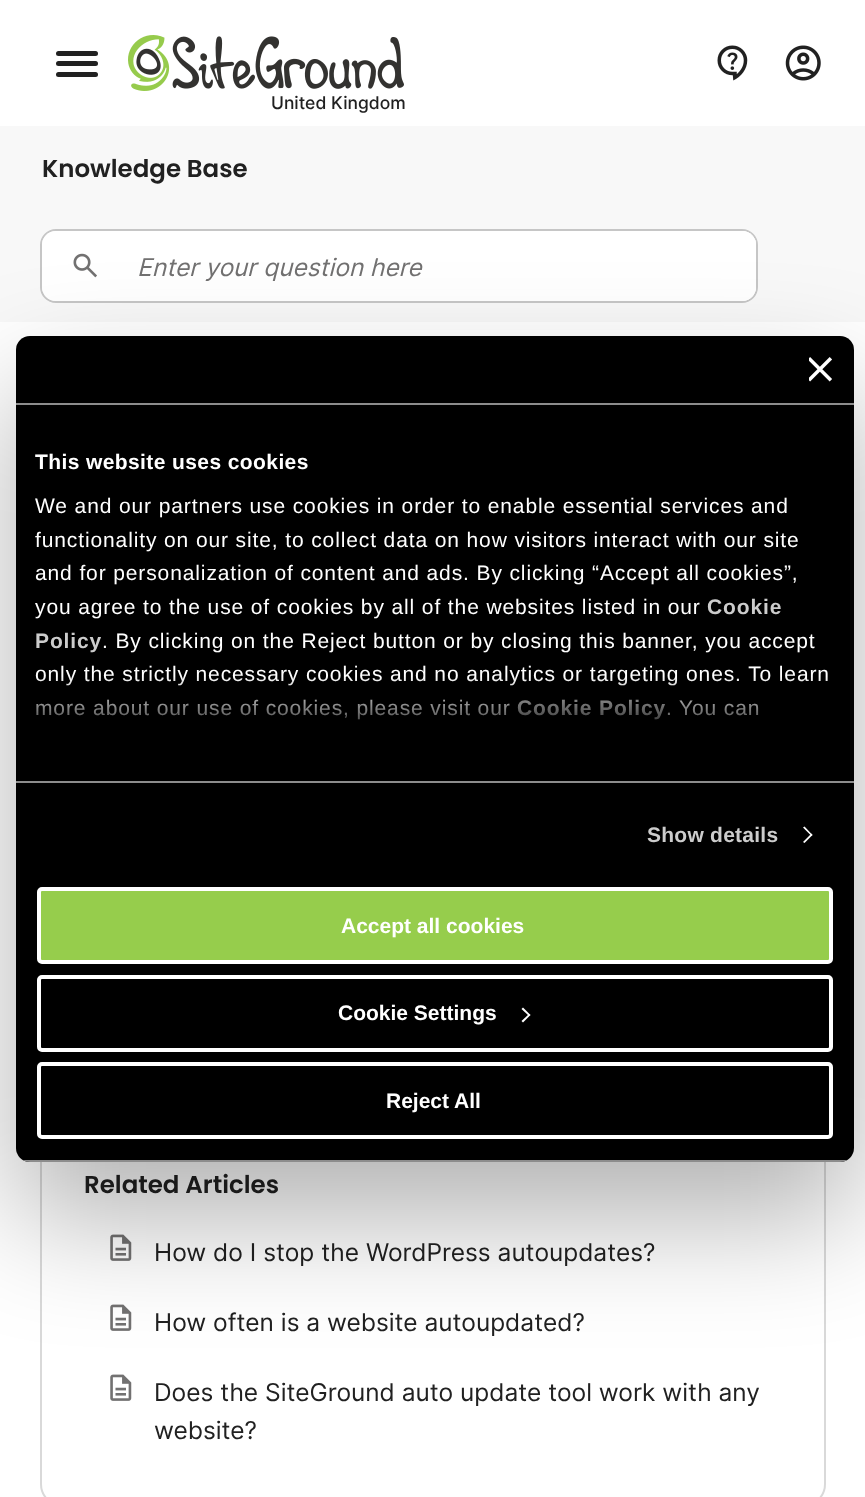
async function draw(canvas) {
  canvas.width = 865
  canvas.height = 1497
  const ctx = canvas.getContext('2d')
  ctx.miterLimit = 4
  ctx.fontKerning = 'normal'
  async function loadImage(src) {
    const img = new Image()
    img.src = src
    await img.decode()
    return img
  }
  let gradient

  ctx.fillStyle = '#fff'
  ctx.fillRect(0, 0, 865, 1497)
  ctx.fillStyle = '#212121'
  ctx.beginPath()
  ctx.roundRect(56, 51, 21, 5, [2.5, 0, 0, 2.5])
  ctx.fill()
  ctx.beginPath()
  ctx.roundRect(77, 51, 21, 5, [0, 2.5, 2.5, 0])
  ctx.fill()
  ctx.beginPath()
  ctx.roundRect(56, 61, 21, 5, [2.5, 0, 0, 2.5])
  ctx.fill()
  ctx.beginPath()
  ctx.roundRect(77, 61, 21, 5, [0, 2.5, 2.5, 0])
  ctx.fill()
  ctx.beginPath()
  ctx.roundRect(56, 72, 21, 5, [2.5, 0, 0, 2.5])
  ctx.fill()
  ctx.beginPath()
  ctx.roundRect(77, 72, 21, 5, [0, 2.5, 2.5, 0])
  ctx.fill()
  ctx.drawImage(await loadImage('image0.png'), 717, 45, 31, 36)
  ctx.drawImage(await loadImage('image1.png'), 785, 45, 36, 36)
  ctx.drawImage(await loadImage('image2.png'), 128, 35, 276, 56)
  ctx.font = '500 17.5px Inter'
  ctx.fillText('United Kingdom', 271, 109)
  ctx.fillStyle = '#f8f8f8'
  ctx.fillRect(0, 126, 865, 196)
  ctx.font = '600 24.5px Poppins'
  ctx.fillStyle = '#212121'
  ctx.fillText('Knowledge Base', 42, 177)
  ctx.beginPath()
  ctx.roundRect(41, 230, 716, 72, 15)
  ctx.strokeStyle = '#c6c6c6'
  ctx.lineWidth = 2
  ctx.stroke()
  ctx.fillStyle = '#fff'
  ctx.beginPath()
  ctx.roundRect(42, 231, 714, 70, 14)
  ctx.fill()
  ctx.drawImage(await loadImage('image3.png'), 73, 253, 24, 25)
  ctx.beginPath()
  ctx.roundRect(116, 231, 640, 70, 14)
  ctx.fill()
  ctx.font = 'italic 24.5px Inter'
  ctx.fillStyle = '#727171'
  ctx.fillText('Enter your question here', 137, 276)
  ctx.beginPath()
  ctx.roundRect(41, 1119, 784, 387, 22)
  ctx.strokeStyle = '#d9d9d9'
  ctx.stroke()
  ctx.font = '600 24.5px Poppins'
  ctx.fillStyle = '#212121'
  ctx.fillText('Related Articles', 84, 1193)
  ctx.drawImage(await loadImage('image4.png'), 110, 1234, 22, 27)
  ctx.font = '24.5px Inter'
  ctx.fillText('How do I stop the WordPress autoupdates?', 154, 1261)
  ctx.drawImage(await loadImage('image4.png'), 110, 1304, 22, 27)
  ctx.fillText('How often is a website autoupdated?', 154, 1331)
  ctx.drawImage(await loadImage('image4.png'), 110, 1374, 22, 27)
  ctx.fillText('Does the SiteGround auto update tool work with any', 154, 1401)
  ctx.fillText('website?', 154, 1439)
  ctx.fillStyle = '#0000004d'
  ctx.filter = 'blur(59.5px)'
  ctx.beginPath()
  ctx.roundRect(16, 392, 838, 826, 14)
  ctx.fill()
  ctx.filter = 'none'
  ctx.fillStyle = '#000'
  ctx.beginPath()
  ctx.roundRect(16, 336, 838, 826, 14)
  ctx.fill()
  ctx.fillStyle = '#8c8c8c'
  ctx.fillRect(16, 403, 838, 2)
  ctx.drawImage(await loadImage('image5.png'), 809, 357, 23, 25)
  ctx.fillRect(16, 781, 838, 2)
  ctx.letterSpacing = '0.4px'
  ctx.font = 'bold 21px Liberation Sans'
  ctx.fillStyle = '#fff'
  ctx.fillText('This website uses cookies', 35, 469)
  ctx.letterSpacing = '0.88px'
  ctx.font = '21px Liberation Sans'
  ctx.fillText('We and our partners use cookies in order to enable essential services and', 35, 513)
  ctx.fillText('functionality on our site, to collect data on how visitors interact with our site', 35, 547)
  ctx.fillText('and for personalization of content and ads. By clicking “Accept all cookies”,', 35, 580)
  ctx.fillText('you agree to the use of cookies by all of the websites listed in our', 35, 614)
  ctx.font = 'bold 21px Liberation Sans'
  ctx.fillStyle = '#ccc'
  ctx.fillText('Cookie', 707, 614)
  ctx.fillText('Policy', 35, 648)
  ctx.font = '21px Liberation Sans'
  ctx.fillStyle = '#fff'
  ctx.fillText('. By clicking on the Reject button or by closing this banner, you accept', 102, 648)
  ctx.fillText('only the strictly necessary cookies and no analytics or targeting ones. To learn', 35, 681)
  ctx.fillText('more about our use of cookies, please visit our', 35, 715)
  ctx.font = 'bold 21px Liberation Sans'
  ctx.fillStyle = '#ccc'
  ctx.fillText('Cookie Policy', 517, 715)
  ctx.font = '21px Liberation Sans'
  ctx.fillStyle = '#fff'
  ctx.fillText('. You can', 666, 715)
  gradient = ctx.createLinearGradient(425, 781, 425, 676)
  gradient.addColorStop(0, '#000')
  gradient.addColorStop(0.5, '#000000cc')
  gradient.addColorStop(1, '#00000000')
  ctx.fillStyle = gradient
  ctx.fillRect(36, 677, 792, 43)
  ctx.letterSpacing = '0.25px'
  ctx.font = 'bold 21px Liberation Sans'
  ctx.fillStyle = '#ccc'
  ctx.fillText('Show details', 647, 842)
  ctx.fillStyle = '#fff'
  ctx.beginPath()
  ctx.moveTo(804.5, 826.5)
  ctx.lineTo(812.5, 835)
  ctx.lineTo(811.5, 836)
  ctx.lineTo(803, 827.5)
  ctx.closePath()
  ctx.fill()
  ctx.beginPath()
  ctx.moveTo(811.5, 833.5)
  ctx.lineTo(812.5, 835)
  ctx.lineTo(804.5, 843)
  ctx.lineTo(803, 842)
  ctx.closePath()
  ctx.fill()
  ctx.save()
  ctx.beginPath()
  ctx.roundRect(16, 336, 838, 826, 14)
  ctx.clip()
  ctx.fillStyle = '#8c8c8c'
  ctx.fillRect(16, 1160, 838, 2)
  ctx.restore()
  ctx.fillStyle = '#96cd4c'
  ctx.beginPath()
  ctx.roundRect(39, 889, 792, 73, 3)
  ctx.fill()
  ctx.strokeStyle = '#fff'
  ctx.lineWidth = 4
  ctx.stroke()
  ctx.letterSpacing = '0px'
  ctx.fillStyle = '#fff'
  ctx.fillText('Accept all cookies', 341, 933)
  ctx.beginPath()
  ctx.roundRect(39, 977, 792, 73, 3)
  ctx.stroke()
  ctx.fillText('Cookie Settings', 338, 1020)
  ctx.beginPath()
  ctx.moveTo(523, 1007.5)
  ctx.lineTo(530.5, 1015)
  ctx.lineTo(529, 1016)
  ctx.lineTo(521.5, 1009)
  ctx.closePath()
  ctx.fill()
  ctx.beginPath()
  ctx.moveTo(529, 1014)
  ctx.lineTo(530.5, 1015)
  ctx.lineTo(523, 1022.5)
  ctx.lineTo(521.5, 1021)
  ctx.closePath()
  ctx.fill()
  ctx.beginPath()
  ctx.roundRect(39, 1064, 792, 73, 3)
  ctx.stroke()
  ctx.fillText('Reject All', 386, 1108)
}

draw(document.querySelector('canvas'))
